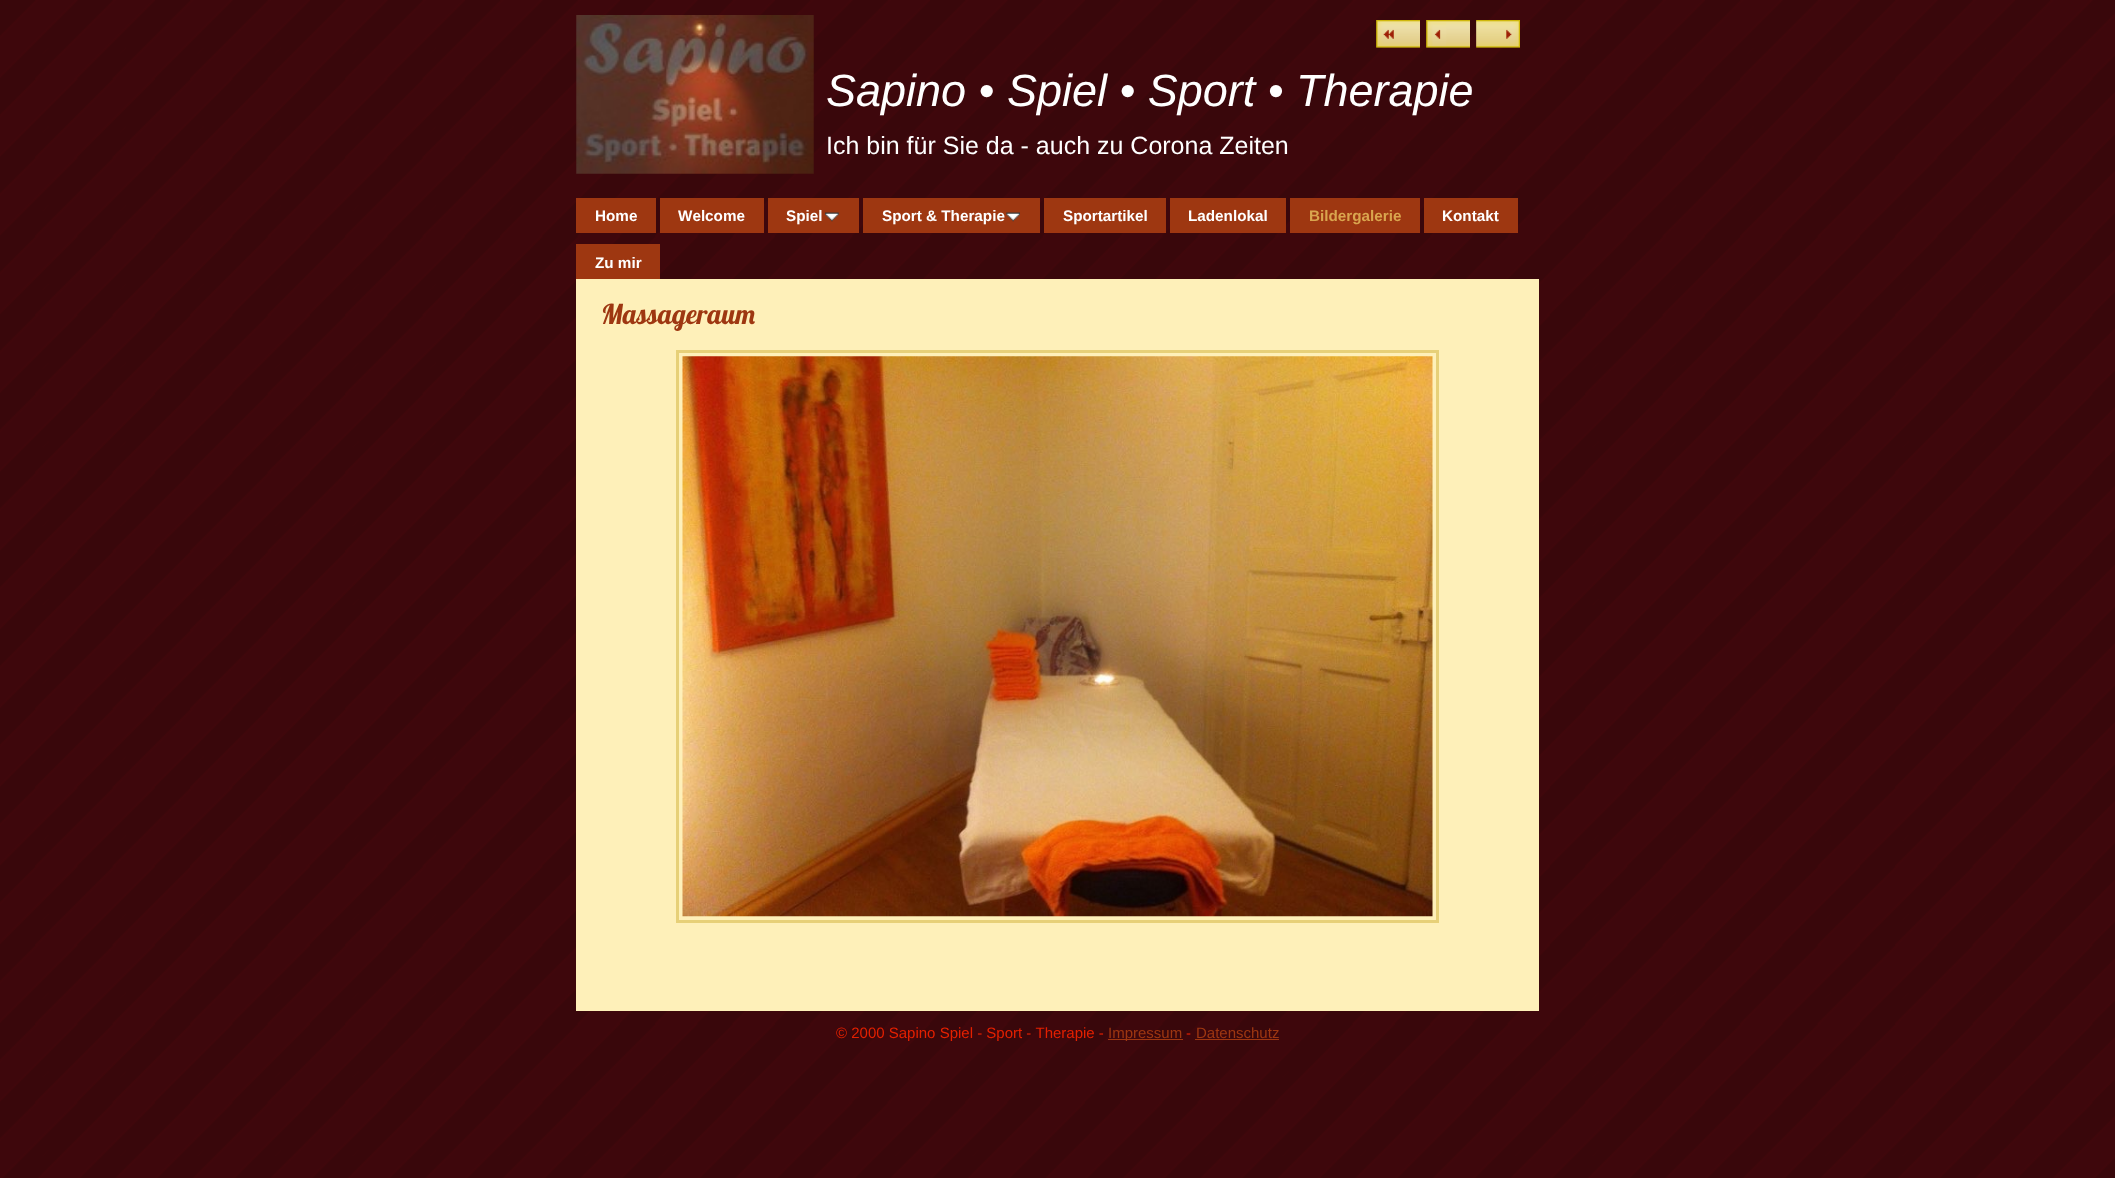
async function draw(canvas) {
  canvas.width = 2115
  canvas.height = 1178
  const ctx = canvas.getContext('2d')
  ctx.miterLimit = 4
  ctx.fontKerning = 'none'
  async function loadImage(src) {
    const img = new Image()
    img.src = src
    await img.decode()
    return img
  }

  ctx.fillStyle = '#fff'
  ctx.fillRect(0, 0, 2115, 1178)
  ctx.drawImage(await loadImage('image0.png'), 0, 0, 2115, 1178)
  ctx.drawImage(await loadImage('image1.png'), 576, 15, 238, 159)
  ctx.font = 'italic 45px Liberation Sans'
  ctx.fillText('Sapino • Spiel • Sport • Therapie', 826, 106)
  ctx.font = '25px Liberation Sans'
  ctx.fillText('Ich bin für Sie da - auch zu Corona Zeiten', 826, 154)
  ctx.fillStyle = '#9e3711'
  ctx.fillRect(576, 198, 80, 35)
  ctx.font = 'bold 15.25px Liberation Sans'
  ctx.fillStyle = '#fff'
  ctx.fillText('Home', 595, 221)
  ctx.fillStyle = '#9e3711'
  ctx.fillRect(660, 198, 104, 35)
  ctx.fillStyle = '#fff'
  ctx.fillText('Welcome', 678, 221)
  ctx.fillStyle = '#9e3711'
  ctx.fillRect(768, 198, 91, 35)
  ctx.fillStyle = '#fff'
  ctx.fillText('Spiel', 786, 221)
  ctx.drawImage(await loadImage('image2.png'), 825, 212, 14, 10)
  ctx.fillStyle = '#9e3711'
  ctx.fillRect(863, 198, 177, 35)
  ctx.fillStyle = '#fff'
  ctx.fillText('Sport & Therapie', 882, 221)
  ctx.drawImage(await loadImage('image3.png'), 1006, 212, 14, 10)
  ctx.fillStyle = '#9e3711'
  ctx.fillRect(1044, 198, 122, 35)
  ctx.fillStyle = '#fff'
  ctx.fillText('Sportartikel', 1063, 221)
  ctx.fillStyle = '#9e3711'
  ctx.fillRect(1170, 198, 116, 35)
  ctx.fillStyle = '#fff'
  ctx.fillText('Ladenlokal', 1188, 221)
  ctx.fillStyle = '#9e3711'
  ctx.fillRect(1290, 198, 130, 35)
  ctx.fillStyle = '#d9a54e'
  ctx.fillText('Bildergalerie', 1309, 221)
  ctx.fillStyle = '#9e3711'
  ctx.fillRect(1424, 198, 94, 35)
  ctx.fillStyle = '#fff'
  ctx.fillText('Kontakt', 1442, 221)
  ctx.fillStyle = '#9e3711'
  ctx.fillRect(576, 244, 84, 35)
  ctx.fillStyle = '#fff'
  ctx.fillText('Zu mir', 595, 268)
  ctx.fillStyle = '#fef0b9'
  ctx.fillRect(576, 279, 963, 732)
  ctx.drawImage(await loadImage('image4.png'), 1376, 20, 44, 28)
  ctx.drawImage(await loadImage('image5.png'), 1376, 20, 44, 28)
  ctx.drawImage(await loadImage('image6.png'), 1426, 20, 44, 28)
  ctx.drawImage(await loadImage('image7.png'), 1426, 20, 44, 28)
  ctx.drawImage(await loadImage('image8.png'), 1476, 20, 44, 28)
  ctx.drawImage(await loadImage('image9.png'), 1476, 20, 44, 28)
  ctx.font = '27.5px Lobster'
  ctx.fillStyle = '#9e3711'
  ctx.fillText('Massageraum', 601, 324)
  ctx.strokeStyle = '#e7d078'
  ctx.lineWidth = 3
  ctx.strokeRect(677.5, 351.5, 760, 570)
  ctx.drawImage(await loadImage('image10.png'), 682, 356, 751, 561)
  ctx.font = '15px Liberation Sans'
  ctx.fillStyle = '#e42000'
  ctx.fillText('© 2000 Sapino Spiel - Sport - Therapie -', 836, 1038)
  ctx.fillStyle = '#9e3711'
  ctx.fillRect(1108, 1039, 75, 1)
  ctx.fillText('Impressum', 1108, 1038)
  ctx.fillStyle = '#e42000'
  ctx.fillText('-', 1186, 1038)
  ctx.fillStyle = '#9e3711'
  ctx.fillText('Datenschutz', 1196, 1038)
  ctx.fillRect(1195, 1039, 84, 1)
}

draw(document.querySelector('canvas'))
